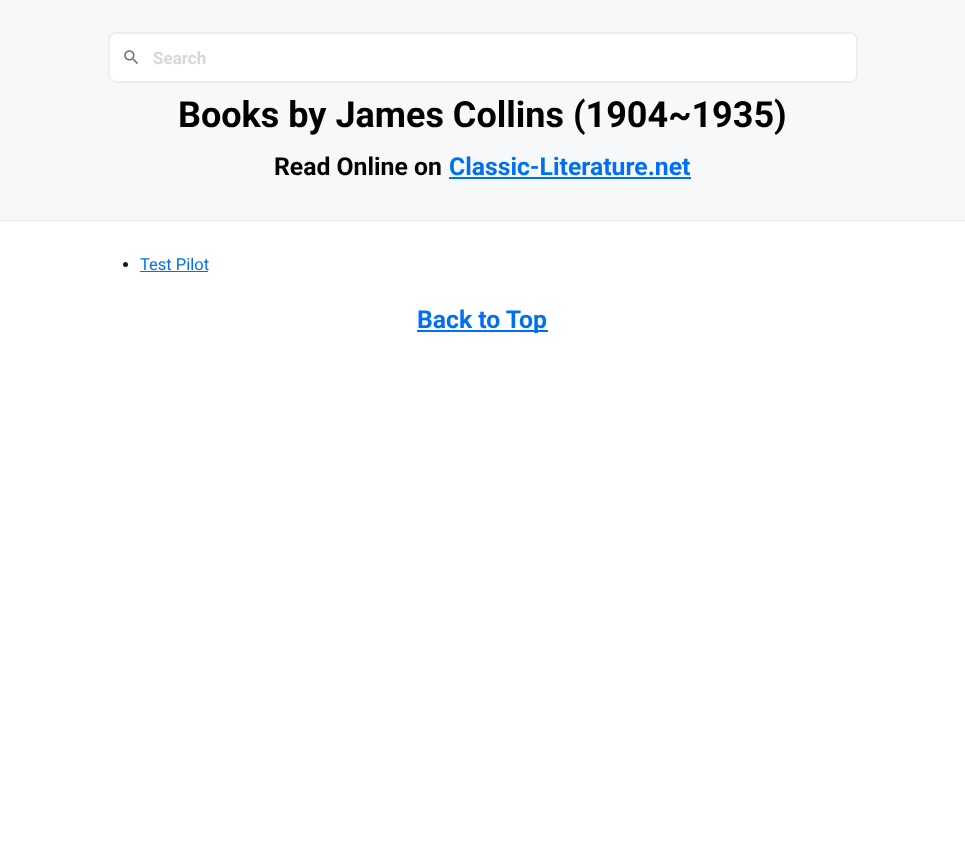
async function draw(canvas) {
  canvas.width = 965
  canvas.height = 849
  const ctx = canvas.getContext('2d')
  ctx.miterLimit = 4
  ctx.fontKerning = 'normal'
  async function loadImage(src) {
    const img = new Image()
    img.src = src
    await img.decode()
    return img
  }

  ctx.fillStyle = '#fff'
  ctx.fillRect(0, 0, 965, 849)
  ctx.fillStyle = '#f6f8fa'
  ctx.fillRect(0, 0, 965, 220)
  ctx.fillStyle = '#e5e7eb'
  ctx.fillRect(0, 220, 965, 1)
  ctx.fillStyle = '#fff'
  ctx.beginPath()
  ctx.roundRect(109, 33, 748, 49, 7)
  ctx.fill()
  ctx.strokeStyle = '#eee'
  ctx.lineWidth = 2
  ctx.stroke()
  ctx.drawImage(await loadImage('image0.png'), 124, 50, 14, 14)
  ctx.font = 'bold 17px Roboto'
  ctx.fillStyle = '#d7d7d7'
  ctx.fillText('Search', 153, 64)
  ctx.font = 'bold 36px Roboto'
  ctx.fillStyle = '#000'
  ctx.fillText('Books by James Collins (1904~1935)', 178, 127)
  ctx.font = 'bold 24.75px Roboto'
  ctx.fillText('Read Online on', 274, 175)
  ctx.fillStyle = '#0070f3'
  ctx.fillText('Classic-Literature.net', 449, 175)
  ctx.fillRect(449, 177, 242, 2)
  ctx.fillStyle = '#1a1a1a'
  ctx.beginPath()
  ctx.arc(125.5, 264.5, 2.5, 0, 2 * Math.PI)
  ctx.fill()
  ctx.font = '16.5px Roboto'
  ctx.fillStyle = '#0070f3'
  ctx.fillText('Test Pilot', 140, 270)
  ctx.fillRect(140, 271, 68, 1)
  ctx.fillRect(417, 330, 131, 2)
  ctx.font = 'bold 24.75px Roboto'
  ctx.fillText('Back to Top', 417, 328)
}

draw(document.querySelector('canvas'))
